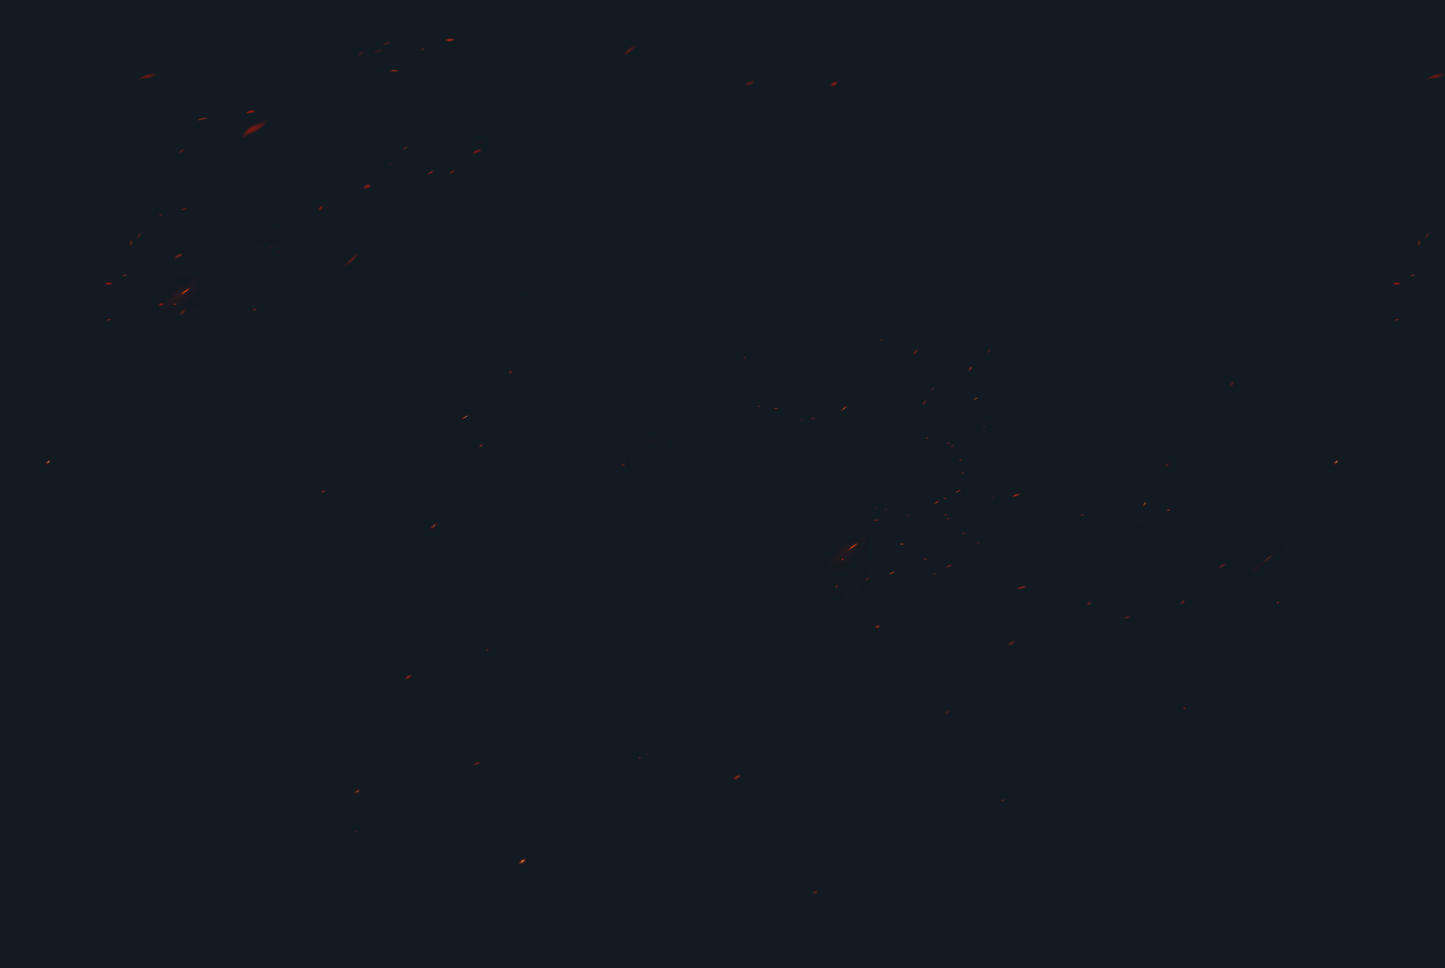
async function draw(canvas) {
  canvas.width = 1445
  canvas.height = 968
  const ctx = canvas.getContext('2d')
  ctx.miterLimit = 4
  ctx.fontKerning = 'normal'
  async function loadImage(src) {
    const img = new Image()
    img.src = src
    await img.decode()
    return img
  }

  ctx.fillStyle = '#121a22'
  ctx.fillRect(0, 0, 1445, 968)
  ctx.drawImage(await loadImage('image0.png'), 45, 38, 1400, 857)
}

draw(document.querySelector('canvas'))
